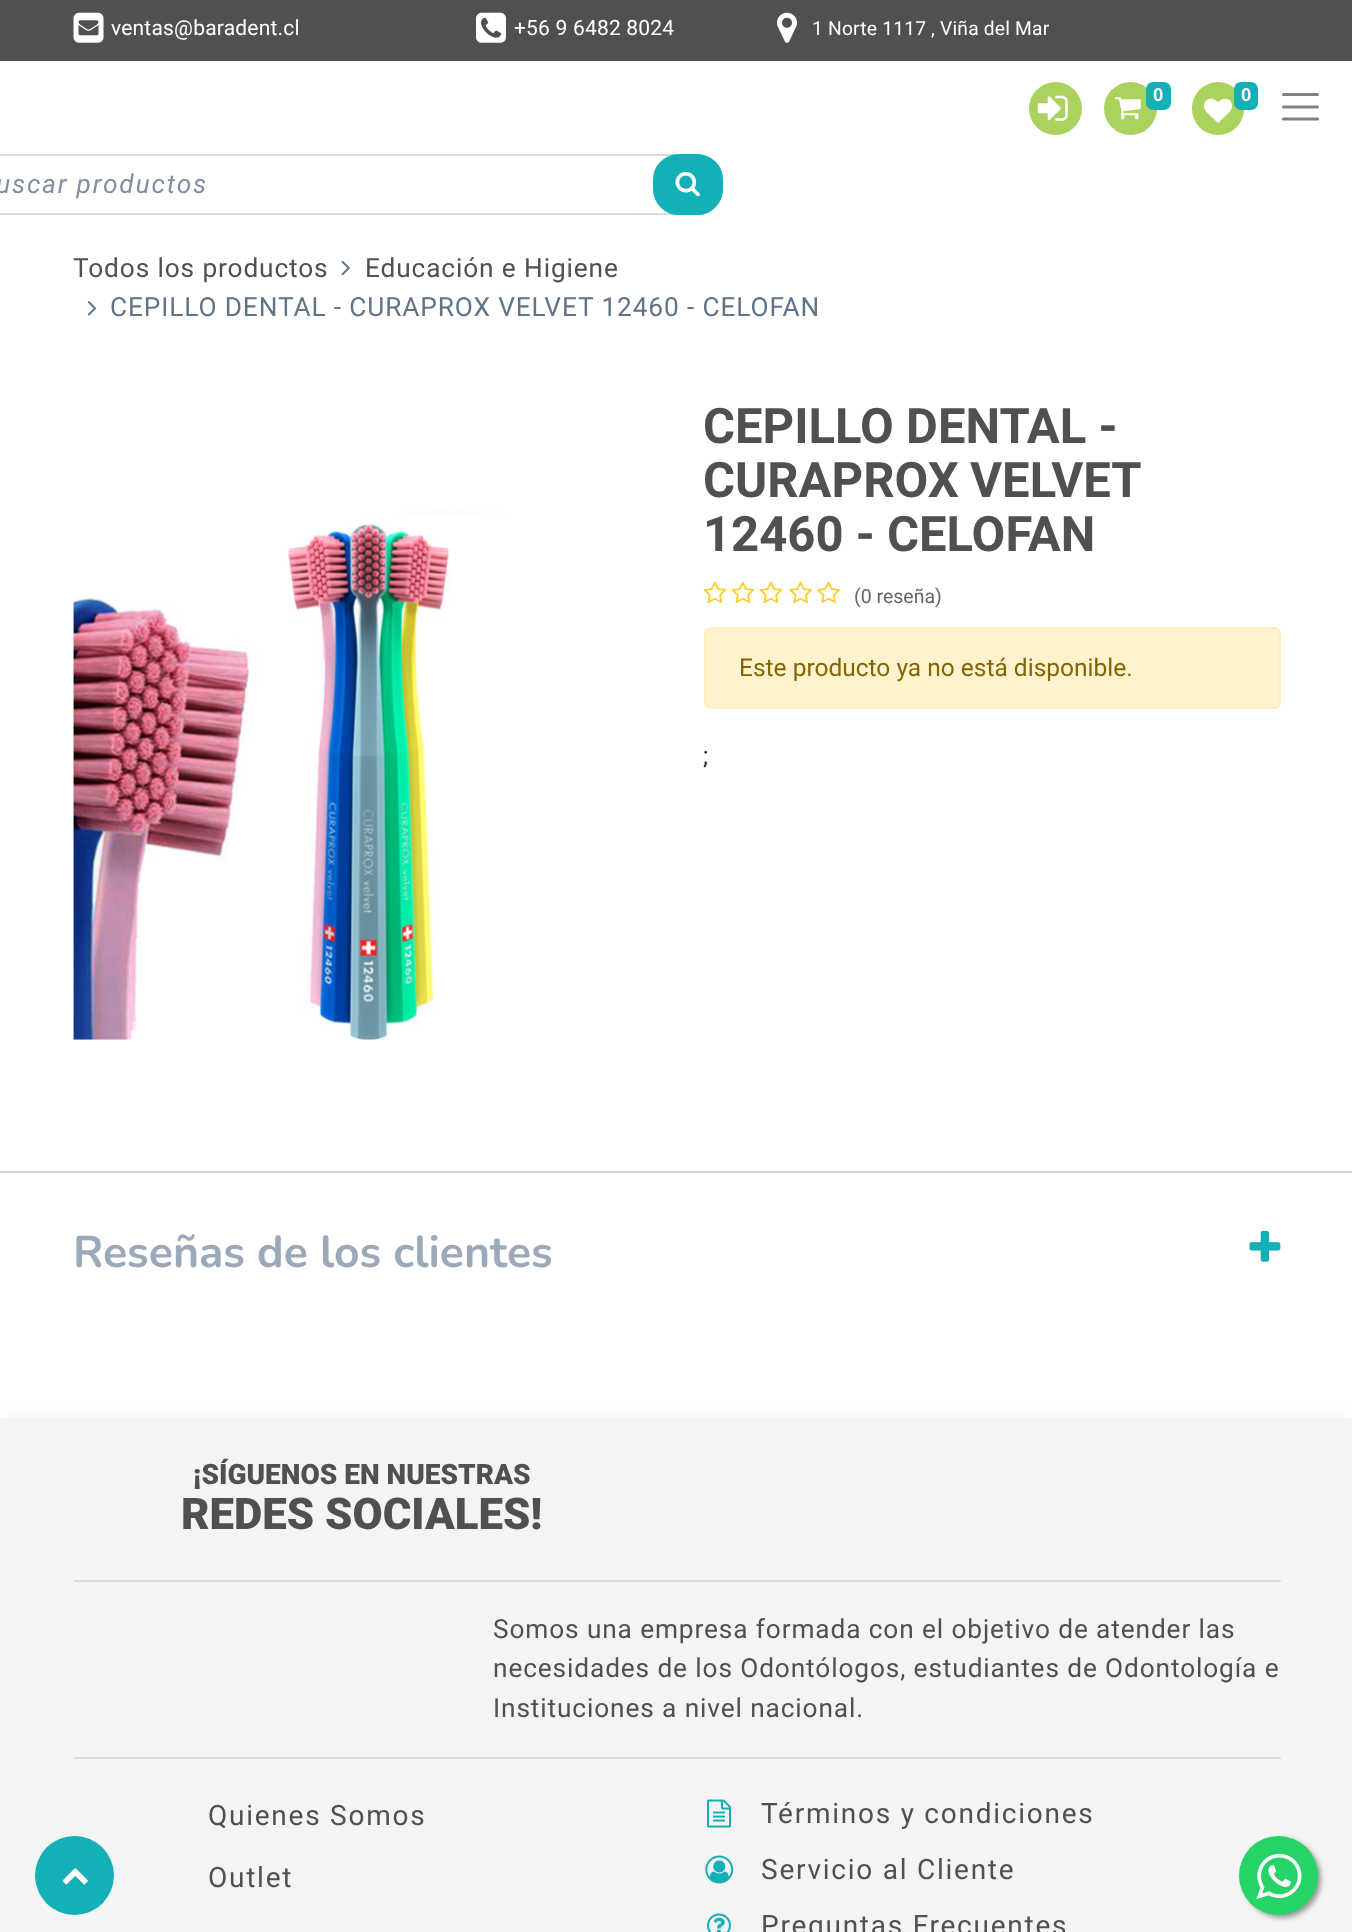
async function draw(canvas) {
  canvas.width = 1352
  canvas.height = 1932
  const ctx = canvas.getContext('2d')
  ctx.miterLimit = 4
  ctx.fontKerning = 'normal'
  async function loadImage(src) {
    const img = new Image()
    img.src = src
    await img.decode()
    return img
  }

  ctx.fillStyle = '#fff'
  ctx.fillRect(0, 0, 1352, 1932)
  ctx.fillStyle = '#505050'
  ctx.fillRect(0, 0, 1352, 61)
  ctx.drawImage(await loadImage('image0.png'), 73, 12, 31, 31)
  ctx.letterSpacing = '0.2px'
  ctx.font = '21px Roboto'
  ctx.fillStyle = '#fff'
  ctx.fillText('ventas@baradent.cl', 111, 35)
  ctx.drawImage(await loadImage('image1.png'), 476, 12, 30, 31)
  ctx.fillText('+56 9 6482 8024', 514, 35)
  ctx.drawImage(await loadImage('image2.png'), 777, 12, 20, 31)
  ctx.font = '19.25px Roboto'
  ctx.fillText('1 Norte 1117', 812, 35)
  ctx.fillText(', Viña del Mar', 931, 35)
  ctx.fillStyle = '#abd25c'
  ctx.beginPath()
  ctx.arc(1055.5, 108.5, 26.5, 0, 2 * Math.PI)
  ctx.fill()
  ctx.drawImage(await loadImage('image3.png'), 1037, 95, 31, 26)
  ctx.beginPath()
  ctx.arc(1130.5, 108.5, 26.5, 0, 2 * Math.PI)
  ctx.fill()
  ctx.drawImage(await loadImage('image4.png'), 1114, 97, 27, 23)
  ctx.fillStyle = '#13b0b7'
  ctx.beginPath()
  ctx.roundRect(1146, 82, 25, 28, 7)
  ctx.fill()
  ctx.letterSpacing = '0px'
  ctx.font = 'bold 18px Roboto'
  ctx.fillStyle = '#fff'
  ctx.fillText('0', 1153, 101)
  ctx.fillStyle = '#abd25c'
  ctx.beginPath()
  ctx.roundRect(1192, 82, 52, 53, 26)
  ctx.fill()
  ctx.drawImage(await loadImage('image5.png'), 1204, 98, 28, 25)
  ctx.fillStyle = '#13b0b7'
  ctx.beginPath()
  ctx.roundRect(1234, 82, 24, 28, 7)
  ctx.fill()
  ctx.fillStyle = '#fff'
  ctx.fillText('0', 1241, 101)
  ctx.beginPath()
  ctx.roundRect(-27, 155, 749, 59, 25)
  ctx.strokeStyle = '#d5dde5'
  ctx.lineWidth = 2
  ctx.stroke()
  ctx.letterSpacing = '1.75px'
  ctx.font = 'italic 26.25px Roboto'
  ctx.fillStyle = '#8090a1'
  ctx.fillText('uscar productos', -4, 193)
  ctx.fillStyle = '#13b0b7'
  ctx.beginPath()
  ctx.roundRect(654, 155, 68, 59, 25)
  ctx.fill()
  ctx.strokeStyle = '#13b0b7'
  ctx.stroke()
  ctx.drawImage(await loadImage('image6.png'), 675, 171, 25, 26)
  ctx.beginPath()
  ctx.moveTo(1283.5, 94.5)
  ctx.lineTo(1317.5, 94.5)
  ctx.moveTo(1283.5, 107)
  ctx.lineTo(1317.5, 107)
  ctx.moveTo(1283.5, 119)
  ctx.lineTo(1317.5, 119)
  ctx.strokeStyle = '#808080'
  ctx.lineWidth = 3.1
  ctx.lineCap = 'round'
  ctx.stroke()
  ctx.letterSpacing = '0.88px'
  ctx.font = '26.25px Roboto'
  ctx.fillStyle = '#505050'
  ctx.fillText('Todos los productos', 73, 277)
  ctx.drawImage(await loadImage('image7.png'), 341, 260, 9, 16)
  ctx.fillText('Educación e Higiene', 365, 277)
  ctx.drawImage(await loadImage('image8.png'), 87, 301, 10, 15)
  ctx.fillStyle = '#607489'
  ctx.fillText('CEPILLO DENTAL - CURAPROX VELVET 12460 - CELOFAN', 110, 316)
  ctx.drawImage(await loadImage('image9.png'), 73, 511, 432, 529)
  ctx.letterSpacing = '0px'
  ctx.font = 'bold 49px Roboto'
  ctx.fillStyle = '#505050'
  ctx.fillText('CEPILLO DENTAL -', 703, 443)
  ctx.wordSpacing = '-1px'
  ctx.fillText('CURAPROX VELVET', 703, 497)
  ctx.wordSpacing = '0px'
  ctx.fillText('12460 - CELOFAN', 703, 551)
  ctx.drawImage(await loadImage('image10.png'), 703, 581, 24, 23)
  ctx.drawImage(await loadImage('image10.png'), 731, 581, 24, 23)
  ctx.drawImage(await loadImage('image10.png'), 759, 581, 24, 23)
  ctx.drawImage(await loadImage('image11.png'), 789, 581, 23, 23)
  ctx.drawImage(await loadImage('image11.png'), 817, 581, 23, 23)
  ctx.font = '19.5px Roboto'
  ctx.fillStyle = '#61666c'
  ctx.fillText('(0 reseña)', 854, 603)
  ctx.fillStyle = '#fff3cd'
  ctx.beginPath()
  ctx.roundRect(705, 628, 575, 80, 6)
  ctx.fill()
  ctx.strokeStyle = '#ffeeba'
  ctx.lineWidth = 2
  ctx.stroke()
  ctx.font = '24.5px Roboto'
  ctx.fillStyle = '#856404'
  ctx.fillText('Este producto ya no está disponible.', 739, 676)
  ctx.fillStyle = '#1d252d'
  ctx.fillText(';', 703, 764)
  ctx.fillStyle = '#cad4de'
  ctx.fillRect(0, 1171, 1352, 2)
  ctx.font = 'bold 44.5px Nunito'
  ctx.fillStyle = '#9ba9bb'
  ctx.fillText('Reseñas de los clientes', 73, 1267)
  ctx.drawImage(await loadImage('image12.png'), 1249, 1230, 32, 32)
  ctx.fillStyle = '#00000026'
  ctx.filter = 'blur(14px)'
  ctx.beginPath()
  ctx.rect(0, 1432, 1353, 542)
  ctx.fill()
  ctx.filter = 'none'
  ctx.fillStyle = '#f4f4f4'
  ctx.fillRect(0, 1418, 1352, 514)
  ctx.fillStyle = '#13b0b7'
  ctx.beginPath()
  ctx.arc(74.5, 1875.5, 39.5, 0, 2 * Math.PI)
  ctx.fill()
  ctx.drawImage(await loadImage('image13.png'), 62, 1868, 26, 17)
  ctx.font = '900 28px Roboto'
  ctx.fillStyle = '#505050'
  ctx.fillText('¡SÍGUENOS EN NUESTRAS', 193, 1484)
  ctx.font = '900 43.75px Roboto'
  ctx.fillText('REDES SOCIALES!', 181, 1529)
  ctx.fillStyle = '#dcdcdc'
  ctx.fillRect(74, 1580, 1207, 2)
  ctx.letterSpacing = '0.88px'
  ctx.font = '26.25px Roboto'
  ctx.fillStyle = '#505050'
  ctx.fillText('Somos una empresa formada con el objetivo de atender las', 493, 1638)
  ctx.fillText('necesidades de los Odontólogos, estudiantes de Odontología e', 493, 1677)
  ctx.fillText('Instituciones a nivel nacional.', 493, 1717)
  ctx.fillStyle = '#dcdcdc'
  ctx.fillRect(74, 1757, 1207, 2)
  ctx.letterSpacing = '1.75px'
  ctx.font = '28px Roboto'
  ctx.fillStyle = '#505050'
  ctx.fillText('Quienes Somos', 208, 1825)
  ctx.fillText('Outlet', 208, 1887)
  ctx.drawImage(await loadImage('image14.png'), 707, 1799, 24, 29)
  ctx.fillText('Términos y condiciones', 761, 1823)
  ctx.drawImage(await loadImage('image15.png'), 705, 1855, 29, 29)
  ctx.fillText('Servicio al Cliente', 761, 1879)
  ctx.drawImage(await loadImage('image16.png'), 707, 1913, 24, 19)
  ctx.fillText('Preguntas Frecuentes', 761, 1935)
  ctx.fillStyle = '#999'
  ctx.filter = 'blur(2.5px)'
  ctx.beginPath()
  ctx.roundRect(1243, 1839, 78, 79, 39)
  ctx.fill()
  ctx.filter = 'none'
  ctx.fillStyle = '#25d366'
  ctx.beginPath()
  ctx.arc(1278.5, 1875.5, 39.5, 0, 2 * Math.PI)
  ctx.fill()
  ctx.drawImage(await loadImage('image17.png'), 1256, 1853, 46, 47)
}

draw(document.querySelector('canvas'))
